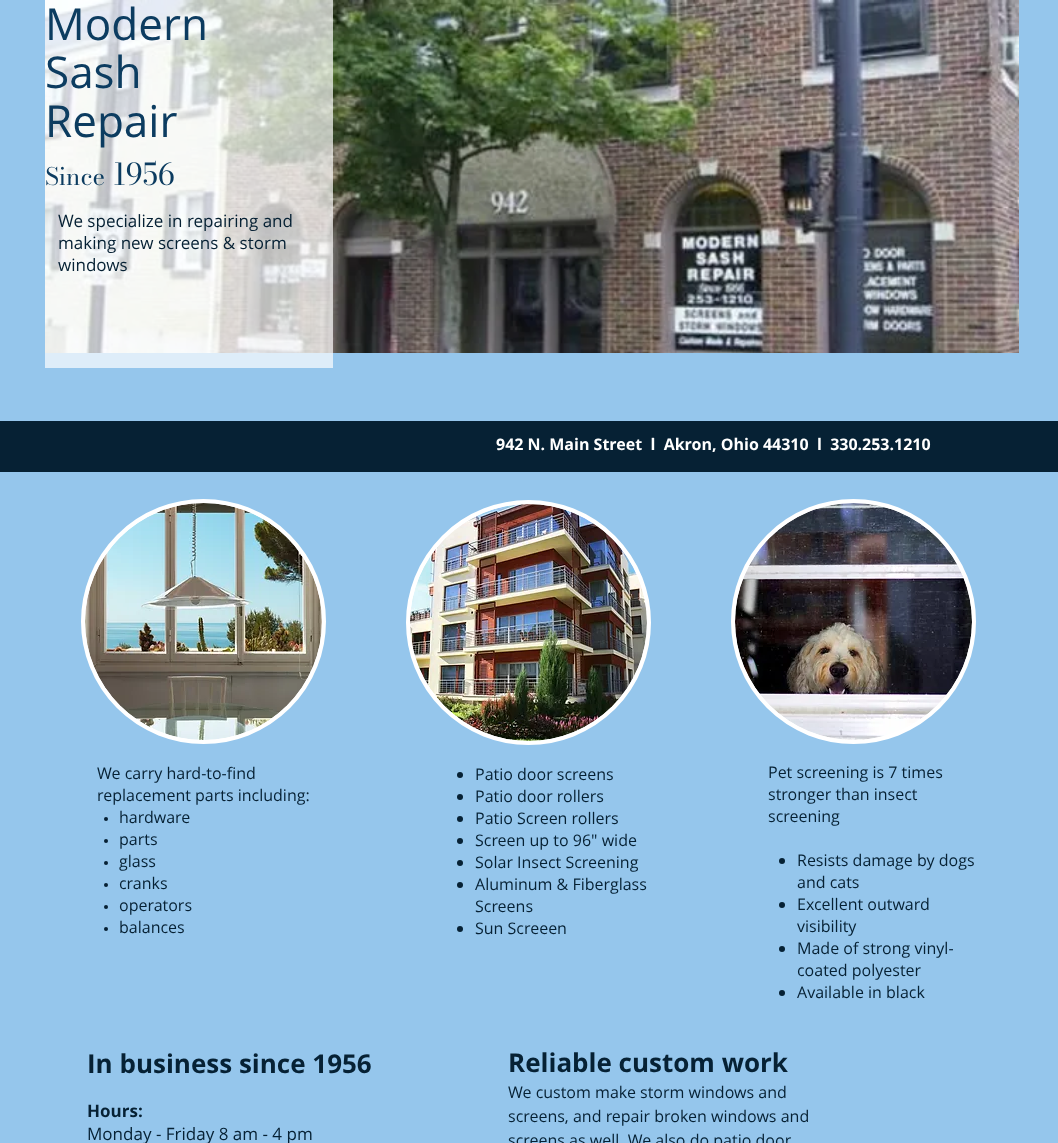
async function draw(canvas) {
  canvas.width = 1058
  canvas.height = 1143
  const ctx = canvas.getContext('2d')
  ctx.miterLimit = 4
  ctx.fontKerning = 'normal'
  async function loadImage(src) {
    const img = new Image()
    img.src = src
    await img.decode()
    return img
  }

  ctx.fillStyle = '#95c6ec'
  ctx.fillRect(0, 0, 1058, 1143)
  ctx.drawImage(await loadImage('image0.png'), 45, 0, 974, 353)
  ctx.fillStyle = '#ffffffb0'
  ctx.fillRect(45, 0, 288, 368)
  ctx.font = '44px Open Sans'
  ctx.fillStyle = '#0c3c60'
  ctx.fillText('Modern', 45, 40)
  ctx.fillText('Sash', 45, 88)
  ctx.fillText('Repair', 45, 137)
  ctx.font = '24px Bodoni Moda'
  ctx.fillText('Since', 45, 185)
  ctx.font = '30px Bodoni Moda'
  ctx.fillText('1956', 113, 185)
  ctx.font = '17px Open Sans'
  ctx.fillStyle = '#062134'
  ctx.fillText('We specialize in repairing and', 58, 227)
  ctx.fillText('making new screens & storm', 58, 249)
  ctx.fillText('windows', 58, 271)
  ctx.fillRect(0, 421, 1058, 51)
  ctx.font = 'bold 16px Open Sans'
  ctx.fillStyle = '#fff'
  ctx.fillText('942 N. Main Street  l  Akron, Ohio 44310  l  330.253.1210', 496, 450)
  ctx.beginPath()
  ctx.arc(203.5, 621.5, 120.5, 0, 2 * Math.PI)
  ctx.fill()
  ctx.strokeStyle = '#fff'
  ctx.lineWidth = 4
  ctx.stroke()
  ctx.drawImage(await loadImage('image1.png'), 85, 503, 237, 237)
  ctx.beginPath()
  ctx.arc(528.5, 622.5, 120.5, 0, 2 * Math.PI)
  ctx.fill()
  ctx.stroke()
  ctx.drawImage(await loadImage('image2.png'), 410, 504, 237, 237)
  ctx.beginPath()
  ctx.arc(853.5, 621.5, 120.5, 0, 2 * Math.PI)
  ctx.fill()
  ctx.stroke()
  ctx.drawImage(await loadImage('image3.png'), 735, 503, 237, 237)
  ctx.font = '16px Open Sans'
  ctx.fillStyle = '#062134'
  ctx.fillText('We carry hard-to-find', 97, 779)
  ctx.fillText('replacement parts including:', 97, 801)
  ctx.beginPath()
  ctx.arc(106, 819, 2, 0, 2 * Math.PI)
  ctx.fill()
  ctx.fillText('hardware', 119, 823)
  ctx.beginPath()
  ctx.arc(106, 841, 2, 0, 2 * Math.PI)
  ctx.fill()
  ctx.fillText('parts', 119, 845)
  ctx.beginPath()
  ctx.arc(106, 863, 2, 0, 2 * Math.PI)
  ctx.fill()
  ctx.fillText('glass', 119, 867)
  ctx.beginPath()
  ctx.arc(106, 885, 2, 0, 2 * Math.PI)
  ctx.fill()
  ctx.fillText('cranks', 119, 889)
  ctx.beginPath()
  ctx.arc(106, 907, 2, 0, 2 * Math.PI)
  ctx.fill()
  ctx.fillText('operators', 119, 911)
  ctx.beginPath()
  ctx.arc(106, 929, 2, 0, 2 * Math.PI)
  ctx.fill()
  ctx.fillText('balances', 119, 933)
  ctx.beginPath()
  ctx.arc(460, 775, 3, 0, 2 * Math.PI)
  ctx.fill()
  ctx.fillText('Patio door screens', 475, 780)
  ctx.beginPath()
  ctx.arc(460, 797, 3, 0, 2 * Math.PI)
  ctx.fill()
  ctx.fillText('Patio door rollers', 475, 802)
  ctx.beginPath()
  ctx.arc(460, 819, 3, 0, 2 * Math.PI)
  ctx.fill()
  ctx.fillText('Patio Screen rollers', 475, 824)
  ctx.beginPath()
  ctx.arc(460, 841, 3, 0, 2 * Math.PI)
  ctx.fill()
  ctx.fillText('Screen up to 96" wide', 475, 846)
  ctx.beginPath()
  ctx.arc(460, 863, 3, 0, 2 * Math.PI)
  ctx.fill()
  ctx.fillText('Solar Insect Screening', 475, 868)
  ctx.beginPath()
  ctx.arc(460, 885, 3, 0, 2 * Math.PI)
  ctx.fill()
  ctx.fillText('Aluminum & Fiberglass', 475, 890)
  ctx.fillText('Screens', 475, 912)
  ctx.beginPath()
  ctx.arc(460, 929, 3, 0, 2 * Math.PI)
  ctx.fill()
  ctx.fillText('Sun Screeen', 475, 934)
  ctx.fillText('Pet screening is 7 times', 768, 778)
  ctx.fillText('stronger than insect', 768, 800)
  ctx.fillText('screening', 768, 822)
  ctx.beginPath()
  ctx.arc(782, 861, 3, 0, 2 * Math.PI)
  ctx.fill()
  ctx.fillText('Resists damage by dogs', 797, 866)
  ctx.fillText('and cats', 797, 888)
  ctx.beginPath()
  ctx.arc(782, 905, 3, 0, 2 * Math.PI)
  ctx.fill()
  ctx.fillText('Excellent outward', 797, 910)
  ctx.fillText('visibility', 797, 932)
  ctx.beginPath()
  ctx.arc(782, 949, 3, 0, 2 * Math.PI)
  ctx.fill()
  ctx.fillText('Made of strong vinyl-', 797, 954)
  ctx.fillText('coated polyester', 797, 976)
  ctx.beginPath()
  ctx.arc(782, 993, 3, 0, 2 * Math.PI)
  ctx.fill()
  ctx.fillText('Available in black', 797, 998)
  ctx.font = 'bold 26px Open Sans'
  ctx.fillText('In business since 1956', 87, 1073)
  ctx.fillText('Reliable custom work', 508, 1072)
  ctx.font = 'bold 17px Open Sans'
  ctx.fillText('Hours:', 87, 1117)
  ctx.font = '17px Open Sans'
  ctx.fillText('Monday - Friday 8 am - 4 pm', 87, 1140)
  ctx.font = '16px Open Sans'
  ctx.fillText('We custom make storm windows and', 508, 1098)
  ctx.fillText('screens, and repair broken windows and', 508, 1122)
  ctx.fillText('screens as well. We also do patio door', 508, 1146)
}

draw(document.querySelector('canvas'))
